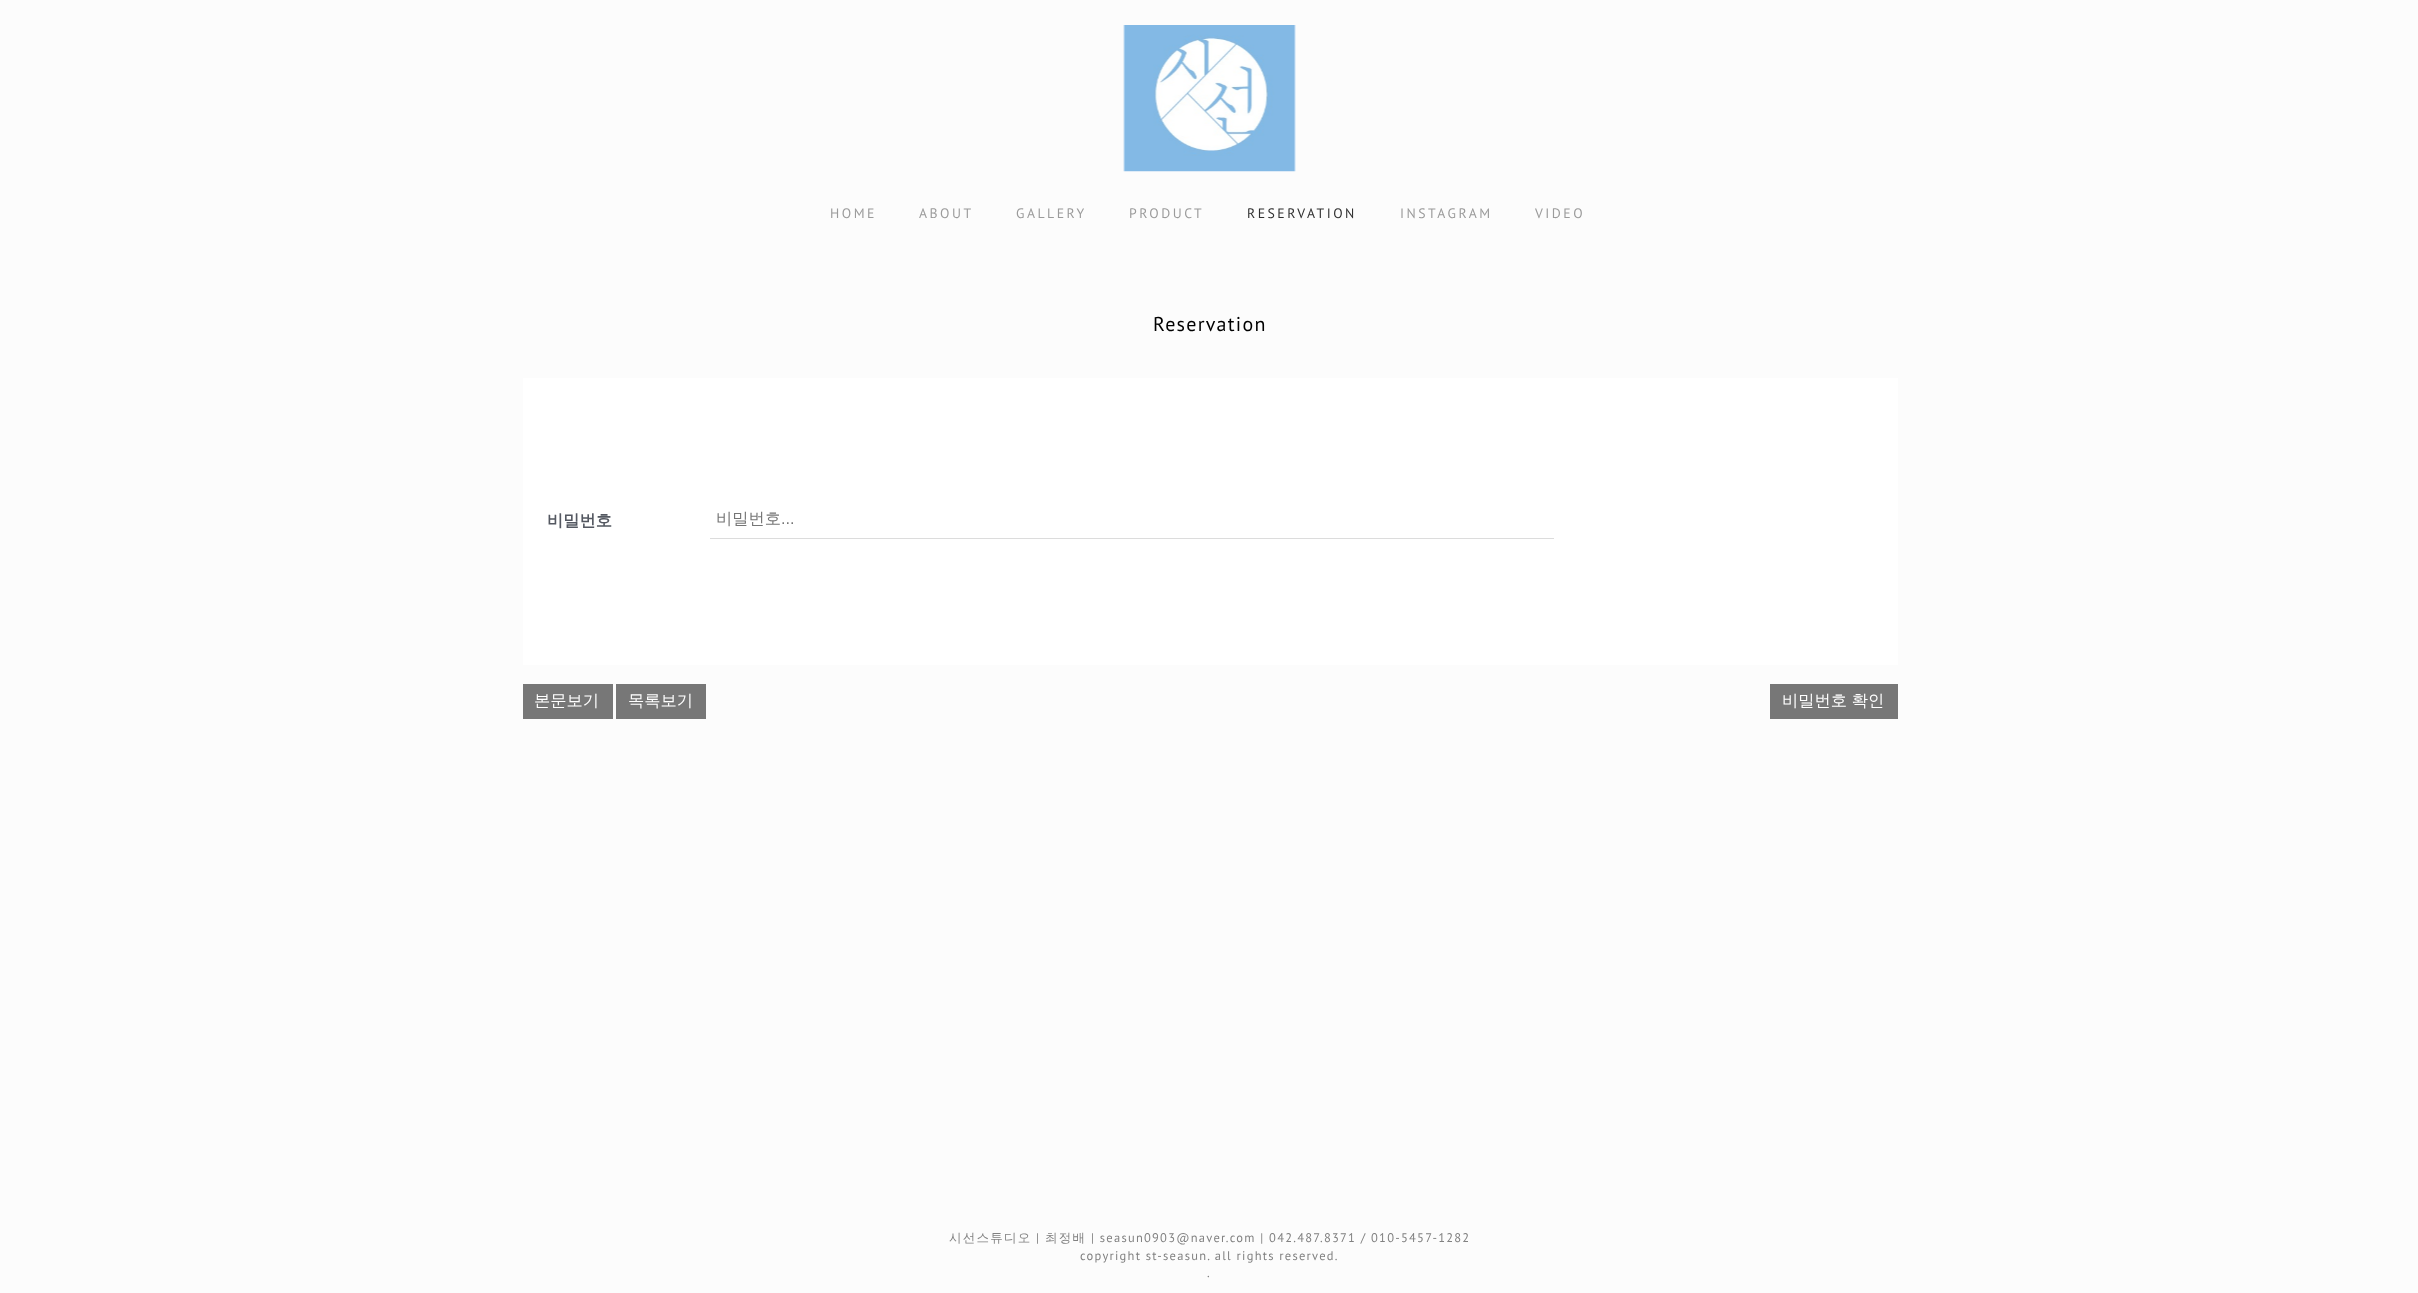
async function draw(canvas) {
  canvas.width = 2418
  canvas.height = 1293
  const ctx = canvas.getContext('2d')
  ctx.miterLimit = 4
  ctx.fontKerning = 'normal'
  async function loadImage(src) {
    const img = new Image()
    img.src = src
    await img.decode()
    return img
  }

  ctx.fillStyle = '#fcfcfc'
  ctx.fillRect(0, 0, 2418, 1293)
  ctx.drawImage(await loadImage('image0.png'), 1123, 25, 173, 147)
  ctx.letterSpacing = '2.5px'
  ctx.font = '13.75px PT Sans'
  ctx.fillStyle = '#9b9b9b'
  ctx.fillText('HOME', 830, 218)
  ctx.fillText('ABOUT', 919, 218)
  ctx.fillText('GALLERY', 1016, 218)
  ctx.fillText('PRODUCT', 1129, 218)
  ctx.fillStyle = '#303030'
  ctx.fillText('RESERVATION', 1247, 218)
  ctx.fillStyle = '#9b9b9b'
  ctx.fillText('INSTAGRAM', 1400, 218)
  ctx.fillText('VIDEO', 1535, 218)
  ctx.letterSpacing = '1.25px'
  ctx.font = '20px PT Sans'
  ctx.fillStyle = '#000'
  ctx.fillText('Reservation', 1153, 331)
  ctx.fillStyle = '#fff'
  ctx.fillRect(523, 378, 1375, 287)
  ctx.letterSpacing = '0px'
  ctx.font = 'bold 16.25px WenQuanYi Zen Hei'
  ctx.fillStyle = '#545861'
  ctx.fillText('비밀번호', 547, 526)
  ctx.fillStyle = '#dcdcdc'
  ctx.fillRect(710, 538, 844, 1)
  ctx.font = '500 16.25px WenQuanYi Zen Hei'
  ctx.fillStyle = '#757575'
  ctx.fillText('비밀번호', 716, 524)
  ctx.font = '16.25px Liberation Sans'
  ctx.fillText('...', 781, 524)
  ctx.fillStyle = '#777'
  ctx.fillRect(523, 684, 90, 35)
  ctx.font = '500 16.25px WenQuanYi Zen Hei'
  ctx.fillStyle = '#fff'
  ctx.fillText('본문보기', 534, 706)
  ctx.fillStyle = '#777'
  ctx.fillRect(616, 684, 90, 35)
  ctx.fillStyle = '#fff'
  ctx.fillText('목록보기', 628, 706)
  ctx.fillStyle = '#777'
  ctx.fillRect(1770, 684, 128, 35)
  ctx.fillStyle = '#fff'
  ctx.fillText('비밀번호 확인', 1782, 706)
  ctx.letterSpacing = '1.25px'
  ctx.font = '500 12.5px WenQuanYi Zen Hei'
  ctx.fillStyle = '#818181'
  ctx.fillText('시선스튜디오', 949, 1242)
  ctx.font = '12.5px PT Sans'
  ctx.fillText('|', 1036, 1242)
  ctx.font = '500 12.5px WenQuanYi Zen Hei'
  ctx.fillText('최정배', 1045, 1242)
  ctx.font = '12.5px PT Sans'
  ctx.fillText('| seasun0903@naver.com | 042.487.8371 / 010-5457-1282', 1091, 1242)
  ctx.fillText('copyright st-seasun. all rights reserved.', 1080, 1260)
  ctx.fillText('.', 1207, 1277)
}

draw(document.querySelector('canvas'))
